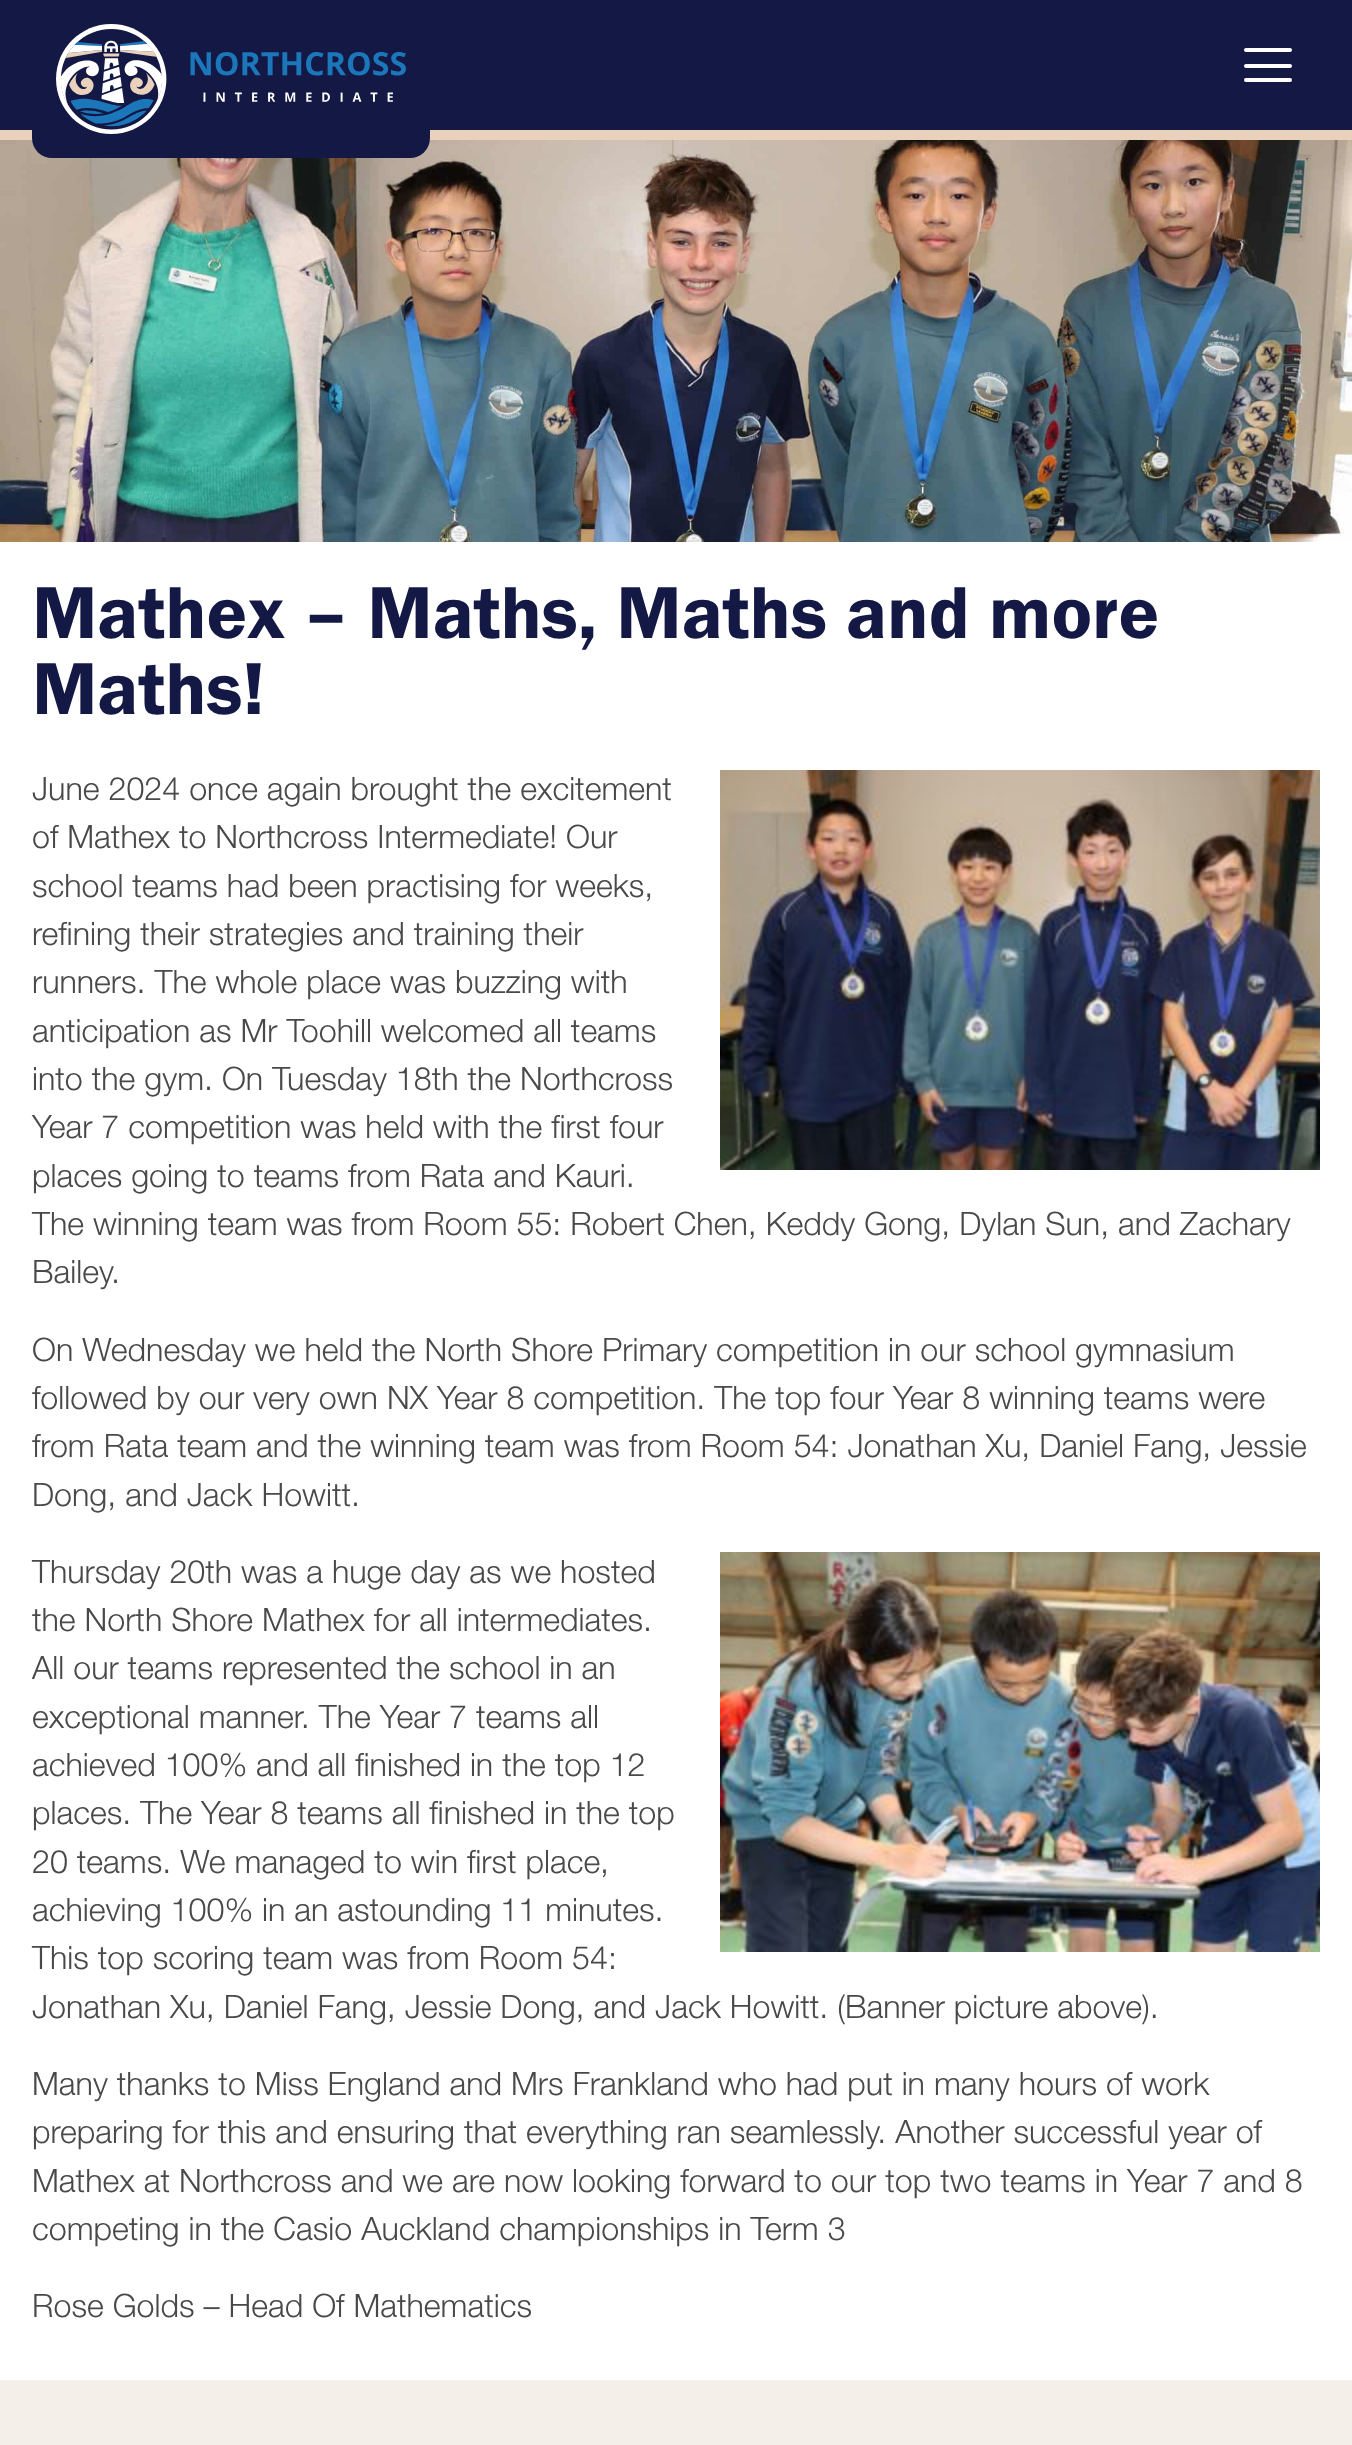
async function draw(canvas) {
  canvas.width = 1352
  canvas.height = 2445
  const ctx = canvas.getContext('2d')
  ctx.miterLimit = 4
  ctx.fontKerning = 'normal'
  async function loadImage(src) {
    const img = new Image()
    img.src = src
    await img.decode()
    return img
  }

  ctx.fillStyle = '#fff'
  ctx.fillRect(0, 0, 1352, 2445)
  ctx.fillStyle = '#131844'
  ctx.fillRect(0, 0, 1352, 130)
  ctx.fillStyle = '#e9d1bb'
  ctx.fillRect(0, 130, 1352, 10)
  ctx.drawImage(await loadImage('image1.png'), 0, 140, 1352, 402)
  ctx.fillStyle = '#131844'
  ctx.beginPath()
  ctx.roundRect(32, 0, 398, 158, [0, 0, 20, 20])
  ctx.fill()
  ctx.drawImage(await loadImage('image0.png'), 56, 24, 350, 110)
  ctx.fillStyle = '#fff'
  ctx.beginPath()
  ctx.roundRect(1244, 64, 48, 4, 2)
  ctx.fill()
  ctx.beginPath()
  ctx.roundRect(1244, 48, 48, 4, 2)
  ctx.fill()
  ctx.beginPath()
  ctx.roundRect(1244, 78, 48, 4, 2)
  ctx.fill()
  ctx.font = '76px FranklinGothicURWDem'
  ctx.fillStyle = '#131844'
  ctx.fillText('Mathex – Maths, Maths and more', 32, 638)
  ctx.fillText('Maths!', 32, 714)
  ctx.font = '300 32.25px Helvetica Neue'
  ctx.fillStyle = '#4a4949'
  ctx.fillText('June 2024 once again brought the excitement', 32, 800)
  ctx.drawImage(await loadImage('image2.png'), 720, 770, 600, 400)
  ctx.fillText('of Mathex to Northcross Intermediate! Our', 32, 848)
  ctx.fillText('school teams had been practising for weeks,', 32, 897)
  ctx.fillText('refining their strategies and training their', 32, 945)
  ctx.fillText('runners. The whole place was buzzing with', 32, 993)
  ctx.fillText('anticipation as Mr Toohill welcomed all teams', 32, 1042)
  ctx.fillText('into the gym. On Tuesday 18th the Northcross', 32, 1090)
  ctx.fillText('Year 7 competition was held with the first four', 32, 1138)
  ctx.fillText('places going to teams from Rata and Kauri.', 32, 1187)
  ctx.fillText('The winning team was from Room 55: Robert Chen, Keddy Gong, Dylan Sun, and Zachary', 32, 1235)
  ctx.fillText('Bailey.', 32, 1283)
  ctx.fillText('On Wednesday we held the North Shore Primary competition in our school gymnasium', 32, 1361)
  ctx.fillText('followed by our very own NX Year 8 competition. The top four Year 8 winning teams were', 32, 1409)
  ctx.fillText('from Rata team and the winning team was from Room 54: Jonathan Xu, Daniel Fang, Jessie', 32, 1457)
  ctx.fillText('Dong, and Jack Howitt.', 32, 1506)
  ctx.fillText('Thursday 20th was a huge day as we hosted', 32, 1583)
  ctx.drawImage(await loadImage('image3.png'), 720, 1552, 600, 400)
  ctx.fillText('the North Shore Mathex for all intermediates.', 32, 1631)
  ctx.fillText('All our teams represented the school in an', 32, 1679)
  ctx.fillText('exceptional manner. The Year 7 teams all', 32, 1728)
  ctx.fillText('achieved 100% and all finished in the top 12', 32, 1776)
  ctx.fillText('places. The Year 8 teams all finished in the top', 32, 1824)
  ctx.fillText('20 teams. We managed to win first place,', 32, 1873)
  ctx.fillText('achieving 100% in an astounding 11 minutes.', 32, 1921)
  ctx.fillText('This top scoring team was from Room 54:', 32, 1969)
  ctx.fillText('Jonathan Xu, Daniel Fang, Jessie Dong, and Jack Howitt. (Banner picture above).', 32, 2018)
  ctx.fillText('Many thanks to Miss England and Mrs Frankland who had put in many hours of work', 32, 2095)
  ctx.fillText('preparing for this and ensuring that everything ran seamlessly. Another successful year of', 32, 2143)
  ctx.fillText('Mathex at Northcross and we are now looking forward to our top two teams in Year 7 and 8', 32, 2192)
  ctx.fillText('competing in the Casio Auckland championships in Term 3', 32, 2240)
  ctx.fillText('Rose Golds – Head Of Mathematics', 32, 2317)
  ctx.fillStyle = '#f5efe9'
  ctx.fillRect(0, 2380, 1352, 65)
}

draw(document.querySelector('canvas'))
